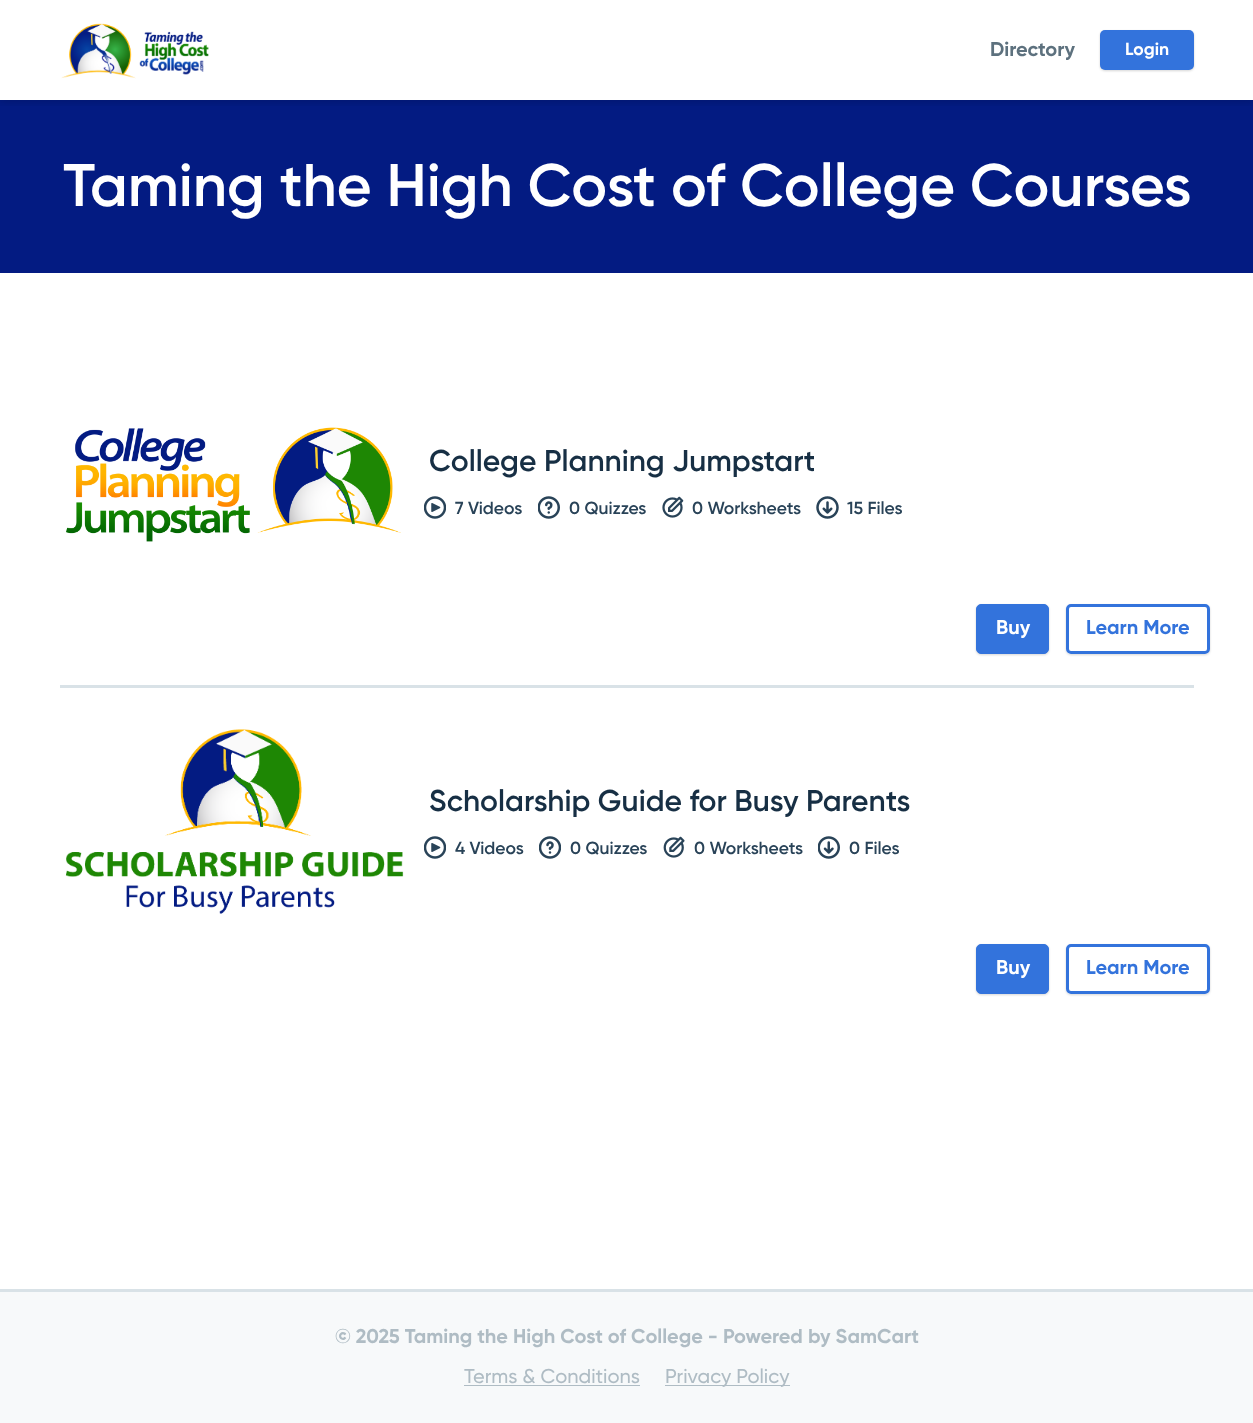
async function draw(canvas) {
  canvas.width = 1253
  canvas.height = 1423
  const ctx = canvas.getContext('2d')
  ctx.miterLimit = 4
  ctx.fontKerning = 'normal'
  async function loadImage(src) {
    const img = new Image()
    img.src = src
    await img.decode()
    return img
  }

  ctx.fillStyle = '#fff'
  ctx.fillRect(0, 0, 1253, 1423)
  ctx.fillStyle = '#031b82'
  ctx.fillRect(0, 100, 1253, 173)
  ctx.save()
  ctx.beginPath()
  ctx.rect(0, 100, 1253, 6)
  ctx.clip()
  ctx.fillStyle = '#00000029'
  ctx.filter = 'blur(4px)'
  ctx.beginPath()
  ctx.rect(0, 1, 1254, 100)
  ctx.fill()
  ctx.filter = 'none'
  ctx.restore()
  ctx.drawImage(await loadImage('image0.png'), 61, 23, 148, 56)
  ctx.font = 'bold 20px Gilroy'
  ctx.fillStyle = '#5d717e'
  ctx.fillText('Directory', 990, 56)
  ctx.fillStyle = '#00000029'
  ctx.filter = 'blur(1px)'
  ctx.beginPath()
  ctx.roundRect(1100, 31, 94, 40, 5)
  ctx.fill()
  ctx.filter = 'none'
  ctx.fillStyle = '#3373dc'
  ctx.beginPath()
  ctx.roundRect(1100, 30, 94, 40, 5)
  ctx.fill()
  ctx.font = 'bold 17.5px Gilroy'
  ctx.fillStyle = '#fff'
  ctx.fillText('Login', 1125, 55)
  ctx.font = '600 60px Gilroy'
  ctx.fillText('Taming the High Cost of College Courses', 63, 206)
  ctx.drawImage(await loadImage('image1.png'), 66, 427, 335, 115)
  ctx.font = '600 30px Gilroy'
  ctx.fillStyle = '#172f44'
  ctx.fillText('College Planning Jumpstart', 429, 471)
  ctx.drawImage(await loadImage('image2.png'), 424, 496, 22, 23)
  ctx.font = '600 17.5px Gilroy'
  ctx.fillStyle = '#294358'
  ctx.fillText('7 Videos', 455, 514)
  ctx.drawImage(await loadImage('image3.png'), 538, 496, 22, 23)
  ctx.fillText('0 Quizzes', 569, 514)
  ctx.drawImage(await loadImage('image4.png'), 662, 496, 22, 22)
  ctx.fillText('0 Worksheets', 692, 514)
  ctx.drawImage(await loadImage('image5.png'), 816, 496, 23, 23)
  ctx.fillText('15 Files', 847, 514)
  ctx.fillStyle = '#00000029'
  ctx.filter = 'blur(1px)'
  ctx.beginPath()
  ctx.roundRect(976, 605, 73, 50, 5)
  ctx.fill()
  ctx.filter = 'none'
  ctx.fillStyle = '#3373dc'
  ctx.beginPath()
  ctx.roundRect(976.5, 604.5, 72, 49, 4.5)
  ctx.fill()
  ctx.strokeStyle = '#3373dc'
  ctx.stroke()
  ctx.font = 'bold 20px Gilroy'
  ctx.fillStyle = '#fff'
  ctx.fillText('Buy', 996, 634)
  ctx.save()
  ctx.beginPath()
  ctx.moveTo(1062, 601)
  ctx.lineTo(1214, 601)
  ctx.lineTo(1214, 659)
  ctx.lineTo(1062, 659)
  ctx.closePath()
  ctx.moveTo(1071, 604)
  ctx.lineTo(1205, 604)
  ctx.bezierCurveTo(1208, 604, 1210, 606, 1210, 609)
  ctx.lineTo(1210, 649)
  ctx.bezierCurveTo(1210, 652, 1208, 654, 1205, 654)
  ctx.lineTo(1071, 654)
  ctx.bezierCurveTo(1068, 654, 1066, 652, 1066, 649)
  ctx.lineTo(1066, 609)
  ctx.bezierCurveTo(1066, 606, 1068, 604, 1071, 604)
  ctx.closePath()
  ctx.clip('evenodd')
  ctx.fillStyle = '#00000029'
  ctx.filter = 'blur(1px)'
  ctx.beginPath()
  ctx.roundRect(1066, 605, 144, 50, 5)
  ctx.fill()
  ctx.filter = 'none'
  ctx.restore()
  ctx.beginPath()
  ctx.roundRect(1067.5, 605.5, 141, 47, 3.5)
  ctx.lineWidth = 3
  ctx.stroke()
  ctx.fillStyle = '#3373dc'
  ctx.fillText('Learn More', 1086, 634)
  ctx.fillStyle = '#d9e2e7'
  ctx.fillRect(60, 685, 1134, 3)
  ctx.drawImage(await loadImage('image6.png'), 65, 729, 339, 185)
  ctx.font = '600 30px Gilroy'
  ctx.fillStyle = '#172f44'
  ctx.fillText('Scholarship Guide for Busy Parents', 429, 811)
  ctx.drawImage(await loadImage('image2.png'), 424, 836, 22, 23)
  ctx.font = '600 17.5px Gilroy'
  ctx.fillStyle = '#294358'
  ctx.fillText('4 Videos', 455, 854)
  ctx.drawImage(await loadImage('image7.png'), 539, 836, 22, 23)
  ctx.fillText('0 Quizzes', 570, 854)
  ctx.drawImage(await loadImage('image8.png'), 663, 836, 22, 22)
  ctx.fillText('0 Worksheets', 694, 854)
  ctx.drawImage(await loadImage('image9.png'), 818, 836, 22, 23)
  ctx.fillText('0 Files', 849, 854)
  ctx.fillStyle = '#00000029'
  ctx.filter = 'blur(1px)'
  ctx.beginPath()
  ctx.roundRect(976, 945, 73, 50, 5)
  ctx.fill()
  ctx.filter = 'none'
  ctx.fillStyle = '#3373dc'
  ctx.beginPath()
  ctx.roundRect(976.5, 944.5, 72, 49, 4.5)
  ctx.fill()
  ctx.lineWidth = 1
  ctx.stroke()
  ctx.font = 'bold 20px Gilroy'
  ctx.fillStyle = '#fff'
  ctx.fillText('Buy', 996, 974)
  ctx.save()
  ctx.beginPath()
  ctx.moveTo(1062, 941)
  ctx.lineTo(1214, 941)
  ctx.lineTo(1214, 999)
  ctx.lineTo(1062, 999)
  ctx.closePath()
  ctx.moveTo(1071, 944)
  ctx.lineTo(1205, 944)
  ctx.bezierCurveTo(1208, 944, 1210, 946, 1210, 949)
  ctx.lineTo(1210, 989)
  ctx.bezierCurveTo(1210, 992, 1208, 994, 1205, 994)
  ctx.lineTo(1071, 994)
  ctx.bezierCurveTo(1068, 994, 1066, 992, 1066, 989)
  ctx.lineTo(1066, 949)
  ctx.bezierCurveTo(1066, 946, 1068, 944, 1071, 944)
  ctx.closePath()
  ctx.clip('evenodd')
  ctx.fillStyle = '#00000029'
  ctx.filter = 'blur(1px)'
  ctx.beginPath()
  ctx.roundRect(1066, 945, 144, 50, 5)
  ctx.fill()
  ctx.filter = 'none'
  ctx.restore()
  ctx.beginPath()
  ctx.roundRect(1067.5, 945.5, 141, 47, 3.5)
  ctx.lineWidth = 3
  ctx.stroke()
  ctx.fillStyle = '#3373dc'
  ctx.fillText('Learn More', 1086, 974)
  ctx.fillStyle = '#f7f9fa'
  ctx.fillRect(0, 1292, 1253, 131)
  ctx.fillStyle = '#d9e2e7'
  ctx.fillRect(0, 1289, 1253, 3)
  ctx.fillStyle = '#afbcc4'
  ctx.fillText('© 2025 Taming the High Cost of College - Powered by SamCart', 335, 1343)
  ctx.font = '500 20px Gilroy'
  ctx.fillText('Terms & Conditions', 464, 1383)
  ctx.fillRect(464, 1385, 176, 1)
  ctx.fillRect(665, 1385, 125, 1)
  ctx.fillText('Privacy Policy', 665, 1383)
}

draw(document.querySelector('canvas'))
